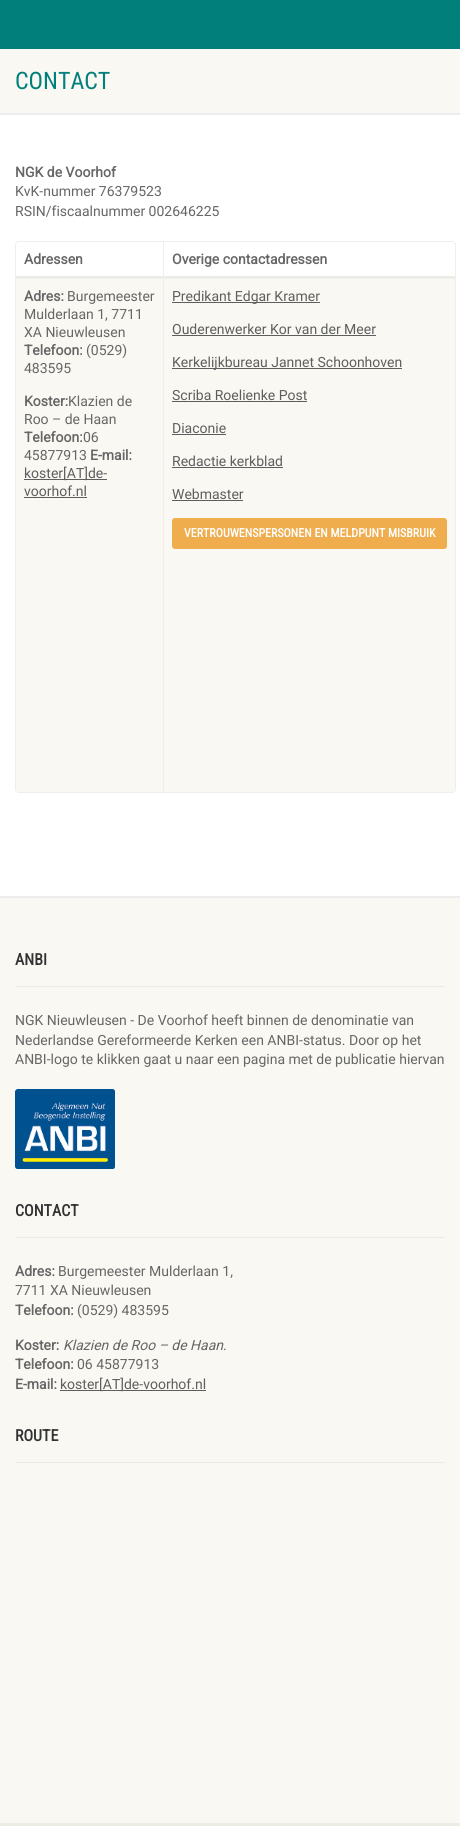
import math
import cairo


def round_path(ctx, x, y, w, h, r):
	ctx.new_sub_path()
	for i, (u, v) in enumerate([(x + w - r, y + h - r), (x + r, y + h - r), (x + r, y + r), (x + w - r, y + r)]):
		ctx.arc(u, v, r, i * math.pi / 2, (i + 1) * math.pi / 2)
	ctx.close_path()

def paste(ctx, path, x, y, w, h):
	ctx.save()
	ctx.set_source_surface(cairo.ImageSurface.create_from_png(path), x, y)
	ctx.rectangle(x, y, w, h)
	ctx.fill()
	ctx.restore()

def draw(ctx):
	ctx.set_source_rgb(1, 1, 1)
	ctx.paint()
	ctx.set_source_rgb(0, 0.498, 0.482)
	ctx.rectangle(0, 0, 460, 49)
	ctx.fill()
	ctx.set_source_rgb(0.929, 0.929, 0.929)
	ctx.rectangle(0, 113, 460, 2)
	ctx.fill()
	ctx.set_source_rgb(0.973, 0.969, 0.953)
	ctx.rectangle(0, 49, 460, 64)
	ctx.fill()
	ctx.select_font_face('Roboto Condensed')
	ctx.set_font_size(24)
	ctx.set_source_rgb(0, 0.498, 0.482)
	ctx.move_to(15, 89)
	ctx.show_text('CONTACT')
	ctx.select_font_face('Roboto', cairo.FONT_SLANT_NORMAL, cairo.FONT_WEIGHT_BOLD)
	ctx.set_font_size(14)
	ctx.set_source_rgb(0.4, 0.4, 0.4)
	ctx.move_to(15, 177)
	ctx.show_text('NGK de Voorhof')
	ctx.select_font_face('Roboto')
	ctx.move_to(15, 196)
	ctx.show_text('KvK-nummer 76379523')
	ctx.move_to(15, 216)
	ctx.show_text('RSIN/fiscaalnummer 002646225')
	round_path(ctx, 15.5, 241.5, 440, 551, 3.5)
	ctx.set_source_rgb(0.933, 0.933, 0.933)
	ctx.set_line_width(1)
	ctx.stroke()
	ctx.set_source_rgb(0.925, 0.918, 0.894)
	ctx.rectangle(16, 276, 147, 2)
	ctx.fill()
	ctx.select_font_face('Roboto', cairo.FONT_SLANT_NORMAL, cairo.FONT_WEIGHT_BOLD)
	ctx.set_source_rgb(0.4, 0.4, 0.4)
	ctx.move_to(24, 264)
	ctx.show_text('Adressen')
	ctx.set_source_rgb(0.925, 0.918, 0.894)
	ctx.new_path()
	ctx.move_to(455, 278)
	ctx.line_to(455, 276)
	ctx.line_to(164, 276)
	ctx.line_to(163, 278)
	ctx.close_path()
	ctx.fill()
	ctx.set_source_rgb(0.933, 0.933, 0.933)
	ctx.new_path()
	ctx.move_to(163, 242)
	ctx.line_to(164, 242)
	ctx.line_to(164, 276)
	ctx.line_to(163, 278)
	ctx.close_path()
	ctx.fill()
	ctx.set_source_rgb(0.4, 0.4, 0.4)
	ctx.move_to(172, 264)
	ctx.show_text('Overige contactadressen')
	ctx.set_source_rgb(0.973, 0.969, 0.953)
	ctx.new_path()
	ctx.move_to(16, 278)
	ctx.line_to(163, 278)
	ctx.line_to(163, 792)
	ctx.line_to(20, 792)
	ctx.curve_to(18, 792, 16, 790, 16, 788)
	ctx.close_path()
	ctx.fill()
	ctx.set_source_rgb(0.933, 0.933, 0.933)
	ctx.rectangle(16, 278, 147, 1)
	ctx.fill()
	ctx.set_source_rgb(0.4, 0.4, 0.4)
	ctx.move_to(24, 301)
	ctx.show_text('Adres:')
	ctx.select_font_face('Roboto')
	for x, y, s in [
		(67, 301, 'Burgemeester'),
		(24, 319, 'Mulderlaan 1, 7711'),
		(24, 337, 'XA Nieuwleusen'),
	]:
		ctx.move_to(x, y)
		ctx.show_text(s)
	ctx.select_font_face('Roboto', cairo.FONT_SLANT_NORMAL, cairo.FONT_WEIGHT_BOLD)
	ctx.move_to(24, 355)
	ctx.show_text('Telefoon:')
	ctx.select_font_face('Roboto')
	ctx.move_to(86, 355)
	ctx.show_text('(0529)')
	ctx.move_to(24, 373)
	ctx.show_text('483595')
	ctx.select_font_face('Roboto', cairo.FONT_SLANT_NORMAL, cairo.FONT_WEIGHT_BOLD)
	ctx.move_to(24, 406)
	ctx.show_text('Koster:')
	ctx.select_font_face('Roboto')
	ctx.move_to(68, 406)
	ctx.show_text('Klazien de')
	ctx.move_to(24, 424)
	ctx.show_text('Roo – de Haan')
	ctx.select_font_face('Roboto', cairo.FONT_SLANT_NORMAL, cairo.FONT_WEIGHT_BOLD)
	ctx.move_to(24, 442)
	ctx.show_text('Telefoon:')
	ctx.select_font_face('Roboto')
	ctx.move_to(83, 442)
	ctx.show_text('06')
	ctx.move_to(24, 460)
	ctx.show_text('45877913')
	ctx.select_font_face('Roboto', cairo.FONT_SLANT_NORMAL, cairo.FONT_WEIGHT_BOLD)
	ctx.move_to(90, 460)
	ctx.show_text('E-mail:')
	ctx.set_source_rgb(0.369, 0.369, 0.369)
	ctx.rectangle(24, 479, 83, 1)
	ctx.fill()
	ctx.select_font_face('Roboto')
	ctx.move_to(24, 478)
	ctx.show_text('koster[AT]de-')
	ctx.move_to(24, 496)
	ctx.show_text('voorhof.nl')
	ctx.rectangle(24, 497, 63, 1)
	ctx.fill()
	ctx.set_source_rgb(0.973, 0.969, 0.953)
	ctx.new_path()
	ctx.move_to(163, 278)
	ctx.line_to(455, 278)
	ctx.line_to(455, 788)
	ctx.curve_to(455, 790, 453, 792, 451, 792)
	ctx.line_to(163, 792)
	ctx.close_path()
	ctx.fill()
	ctx.set_source_rgb(0.933, 0.933, 0.933)
	ctx.rectangle(163, 278, 292, 1)
	ctx.rectangle(163, 278, 1, 514)
	ctx.fill()
	ctx.set_source_rgb(0.369, 0.369, 0.369)
	ctx.rectangle(172, 302, 148, 1)
	ctx.fill()
	ctx.move_to(172, 301)
	ctx.show_text('Predikant Edgar Kramer')
	ctx.move_to(172, 334)
	ctx.show_text('Ouderenwerker Kor van der Meer')
	ctx.rectangle(172, 335, 204, 1)
	ctx.fill()
	ctx.rectangle(172, 368, 230, 1)
	ctx.fill()
	ctx.move_to(172, 367)
	ctx.show_text('Kerkelijkbureau Jannet Schoonhoven')
	ctx.move_to(172, 400)
	ctx.show_text('Scriba Roelienke Post')
	ctx.rectangle(172, 401, 135, 1)
	ctx.fill()
	ctx.move_to(172, 433)
	ctx.show_text('Diaconie')
	ctx.rectangle(172, 434, 54, 1)
	ctx.fill()
	ctx.move_to(172, 466)
	ctx.show_text('Redactie kerkblad')
	ctx.rectangle(172, 467, 111, 1)
	ctx.fill()
	ctx.move_to(172, 499)
	ctx.show_text('Webmaster')
	ctx.rectangle(172, 500, 71, 1)
	ctx.fill()
	ctx.set_source_rgb(0.941, 0.678, 0.306)
	round_path(ctx, 172, 518, 275, 31, 3)
	ctx.fill()
	ctx.select_font_face('Roboto Condensed', cairo.FONT_SLANT_NORMAL, cairo.FONT_WEIGHT_BOLD)
	ctx.set_font_size(12)
	ctx.set_source_rgb(1, 1, 1)
	ctx.move_to(184, 537)
	ctx.show_text('VERTROUWENSPERSONEN EN MELDPUNT MISBRUIK')
	ctx.set_source_rgb(0.929, 0.929, 0.929)
	ctx.rectangle(0, 896, 460, 2)
	ctx.fill()
	ctx.set_source_rgb(0.973, 0.969, 0.953)
	ctx.rectangle(0, 898, 460, 925)
	ctx.fill()
	ctx.set_font_size(16)
	ctx.set_source_rgb(0.2, 0.2, 0.2)
	ctx.move_to(15, 965)
	ctx.show_text('ANBI')
	ctx.set_source_rgb(0.925, 0.918, 0.894)
	ctx.rectangle(15, 986, 430, 1)
	ctx.fill()
	ctx.select_font_face('Roboto')
	ctx.set_font_size(14)
	ctx.set_source_rgb(0.4, 0.4, 0.4)
	for x, y, s in [
		(15, 1025, 'NGK Nieuwleusen - De Voorhof heeft binnen de denominatie van'),
		(15, 1045, 'Nederlandse Gereformeerde Kerken een ANBI-status. Door op het'),
		(15, 1064, 'ANBI-logo te klikken gaat u naar een pagina met de publicatie hiervan'),
	]:
		ctx.move_to(x, y)
		ctx.show_text(s)
	paste(ctx, 'media/1.png', 15, 1089, 100, 80)
	ctx.select_font_face('Roboto Condensed', cairo.FONT_SLANT_NORMAL, cairo.FONT_WEIGHT_BOLD)
	ctx.set_font_size(16)
	ctx.set_source_rgb(0.2, 0.2, 0.2)
	ctx.move_to(15, 1216)
	ctx.show_text('CONTACT')
	ctx.set_source_rgb(0.925, 0.918, 0.894)
	ctx.rectangle(15, 1237, 430, 1)
	ctx.fill()
	ctx.select_font_face('Roboto', cairo.FONT_SLANT_NORMAL, cairo.FONT_WEIGHT_BOLD)
	ctx.set_font_size(14)
	ctx.set_source_rgb(0.4, 0.4, 0.4)
	ctx.move_to(15, 1276)
	ctx.show_text('Adres:')
	ctx.select_font_face('Roboto')
	ctx.move_to(58, 1276)
	ctx.show_text('Burgemeester Mulderlaan 1,')
	ctx.move_to(15, 1295)
	ctx.show_text('7711 XA Nieuwleusen')
	ctx.select_font_face('Roboto', cairo.FONT_SLANT_NORMAL, cairo.FONT_WEIGHT_BOLD)
	ctx.move_to(15, 1315)
	ctx.show_text('Telefoon:')
	ctx.select_font_face('Roboto')
	ctx.move_to(77, 1315)
	ctx.show_text('(0529) 483595')
	ctx.select_font_face('Roboto', cairo.FONT_SLANT_NORMAL, cairo.FONT_WEIGHT_BOLD)
	ctx.move_to(15, 1350)
	ctx.show_text('Koster:')
	ctx.select_font_face('Roboto', cairo.FONT_SLANT_ITALIC)
	ctx.move_to(63, 1350)
	ctx.show_text('Klazien de Roo – de Haan')
	ctx.select_font_face('Roboto')
	ctx.move_to(223, 1350)
	ctx.show_text('.')
	ctx.select_font_face('Roboto', cairo.FONT_SLANT_NORMAL, cairo.FONT_WEIGHT_BOLD)
	ctx.move_to(15, 1369)
	ctx.show_text('Telefoon:')
	ctx.select_font_face('Roboto')
	ctx.move_to(77, 1369)
	ctx.show_text('06 45877913')
	ctx.select_font_face('Roboto', cairo.FONT_SLANT_NORMAL, cairo.FONT_WEIGHT_BOLD)
	ctx.move_to(15, 1389)
	ctx.show_text('E-mail:')
	ctx.set_source_rgb(0.369, 0.369, 0.369)
	ctx.rectangle(60, 1390, 146, 1)
	ctx.fill()
	ctx.select_font_face('Roboto')
	ctx.move_to(60, 1389)
	ctx.show_text('koster[AT]de-voorhof.nl')
	ctx.select_font_face('Roboto Condensed', cairo.FONT_SLANT_NORMAL, cairo.FONT_WEIGHT_BOLD)
	ctx.set_font_size(16)
	ctx.set_source_rgb(0.2, 0.2, 0.2)
	ctx.move_to(15, 1441)
	ctx.show_text('ROUTE')
	ctx.set_source_rgb(0.925, 0.918, 0.894)
	ctx.rectangle(15, 1462, 430, 1)
	ctx.fill()
	ctx.rectangle(0, 1823, 460, 3)
	ctx.fill()


surface = cairo.ImageSurface(cairo.FORMAT_RGB24, 460, 1826)
ctx = cairo.Context(surface)
options = cairo.FontOptions()
options.set_hint_metrics(cairo.HINT_METRICS_OFF)
options.set_hint_style(cairo.HINT_STYLE_NONE)
ctx.set_font_options(options)
ctx.set_miter_limit(4)
draw(ctx)
surface.write_to_png('image.png')
